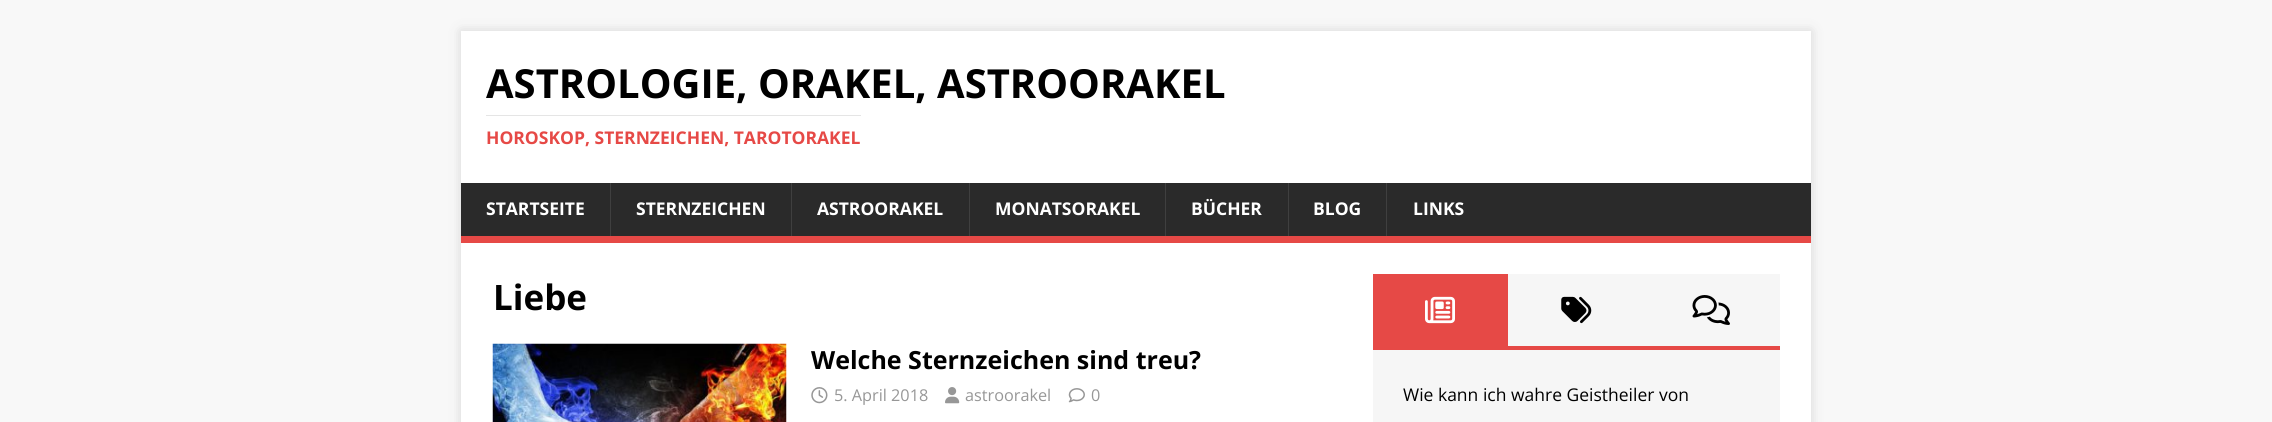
import math
import cairo


def round_path(ctx, x, y, w, h, r):
	ctx.new_sub_path()
	for i, (u, v) in enumerate([(x + w - r, y + h - r), (x + r, y + h - r), (x + r, y + r), (x + w - r, y + r)]):
		ctx.arc(u, v, r, i * math.pi / 2, (i + 1) * math.pi / 2)
	ctx.close_path()

def blur_box(ctx, x, y, w, h, r, blur, alpha):
	ctx.push_group_with_content(cairo.CONTENT_ALPHA)
	ctx.set_operator(cairo.OPERATOR_SOURCE)
	for i in range(15, -16, -2):
		e = blur * i / 6
		if min(w, h) + 2 * e > 0:
			ctx.set_source_rgba(0, 0, 0, alpha * math.erfc((i - 1) / 8.5) / 2)
			round_path(ctx, x - e, y - e, w + 2 * e, h + 2 * e, max(0, min(r + e + blur * .6, min(w, h) / 2 + e)))
			ctx.fill()
	ctx.mask(ctx.pop_group())

def paste(ctx, path, x, y, w, h):
	ctx.save()
	ctx.set_source_surface(cairo.ImageSurface.create_from_png(path), x, y)
	ctx.rectangle(x, y, w, h)
	ctx.fill()
	ctx.restore()

def draw(ctx):
	ctx.set_source_rgb(0.969, 0.969, 0.969)
	ctx.paint()
	ctx.set_source_rgb(0.196, 0.196, 0.196)
	blur_box(ctx, 461, 31, 1350, 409, 0, 6, 0.17)
	ctx.set_source_rgb(1, 1, 1)
	ctx.rectangle(461, 31, 1350, 152)
	ctx.fill()
	ctx.select_font_face('Open Sans', cairo.FONT_SLANT_NORMAL, cairo.FONT_WEIGHT_BOLD)
	ctx.set_font_size(40)
	ctx.set_source_rgb(0, 0, 0)
	ctx.move_to(486, 98)
	ctx.show_text('ASTROLOGIE, ORAKEL, ASTROORAKEL')
	ctx.set_source_rgb(0.898, 0.898, 0.898)
	ctx.rectangle(486, 115, 375, 1)
	ctx.fill()
	ctx.set_font_size(17.5)
	ctx.set_source_rgb(0.902, 0.286, 0.275)
	ctx.move_to(486, 144)
	ctx.show_text('HOROSKOP, STERNZEICHEN, TAROTORAKEL')
	ctx.set_source_rgb(0.165, 0.165, 0.165)
	ctx.rectangle(461, 183, 1350, 53)
	ctx.fill()
	ctx.set_source_rgb(0.902, 0.286, 0.275)
	ctx.rectangle(461, 236, 1350, 7)
	ctx.fill()
	ctx.set_source_rgb(1, 1, 1)
	ctx.move_to(486, 215)
	ctx.show_text('STARTSEITE')
	ctx.set_source_rgb(0.247, 0.247, 0.247)
	ctx.rectangle(610, 183, 1, 53)
	ctx.fill()
	ctx.set_source_rgb(1, 1, 1)
	ctx.move_to(636, 215)
	ctx.show_text('STERNZEICHEN')
	ctx.set_source_rgb(0.247, 0.247, 0.247)
	ctx.rectangle(791, 183, 1, 53)
	ctx.fill()
	ctx.set_source_rgb(1, 1, 1)
	ctx.move_to(817, 215)
	ctx.show_text('ASTROORAKEL')
	ctx.set_source_rgb(0.247, 0.247, 0.247)
	ctx.rectangle(969, 183, 1, 53)
	ctx.fill()
	ctx.set_source_rgb(1, 1, 1)
	ctx.move_to(995, 215)
	ctx.show_text('MONATSORAKEL')
	ctx.set_source_rgb(0.247, 0.247, 0.247)
	ctx.rectangle(1165, 183, 1, 53)
	ctx.fill()
	ctx.set_source_rgb(1, 1, 1)
	ctx.move_to(1191, 215)
	ctx.show_text('BÜCHER')
	ctx.set_source_rgb(0.247, 0.247, 0.247)
	ctx.rectangle(1288, 183, 1, 53)
	ctx.fill()
	ctx.set_source_rgb(1, 1, 1)
	ctx.move_to(1313, 215)
	ctx.show_text('BLOG')
	ctx.set_source_rgb(0.247, 0.247, 0.247)
	ctx.rectangle(1386, 183, 1, 53)
	ctx.fill()
	ctx.set_source_rgb(1, 1, 1)
	ctx.move_to(1413, 215)
	ctx.show_text('LINKS')
	ctx.rectangle(461, 243, 1350, 179)
	ctx.fill()
	ctx.set_font_size(35)
	ctx.set_source_rgb(0, 0, 0)
	ctx.move_to(493, 310)
	ctx.show_text('Liebe')
	paste(ctx, 'media/1.png', 492, 343, 295, 79)
	ctx.set_font_size(25)
	ctx.move_to(811, 369)
	ctx.show_text('Welche Sternzeichen sind treu?')
	paste(ctx, 'media/2.png', 811, 387, 17, 17)
	ctx.select_font_face('Open Sans')
	ctx.set_font_size(16.25)
	ctx.set_source_rgb(0.592, 0.592, 0.592)
	ctx.move_to(834, 401)
	ctx.show_text('5. April 2018')
	paste(ctx, 'media/3.png', 945, 387, 15, 17)
	ctx.move_to(965, 401)
	ctx.show_text('astroorakel')
	paste(ctx, 'media/4.png', 1068, 388, 17, 15)
	ctx.move_to(1091, 401)
	ctx.show_text('0')
	ctx.set_source_rgb(0.902, 0.286, 0.275)
	ctx.rectangle(1373, 346, 407, 4)
	ctx.fill()
	ctx.rectangle(1373, 274, 135, 72)
	ctx.fill()
	paste(ctx, 'media/5.png', 1425, 296, 30, 28)
	ctx.set_source_rgb(0.961, 0.961, 0.961)
	ctx.rectangle(1508, 274, 272, 72)
	ctx.fill()
	paste(ctx, 'media/6.png', 1561, 296, 31, 28)
	paste(ctx, 'media/7.png', 1692, 295, 38, 30)
	ctx.rectangle(1373, 350, 407, 72)
	ctx.fill()
	ctx.set_font_size(17.5)
	ctx.set_source_rgb(0, 0, 0)
	ctx.move_to(1403, 401)
	ctx.show_text('Wie kann ich wahre Geistheiler von')


surface = cairo.ImageSurface(cairo.FORMAT_RGB24, 2272, 422)
ctx = cairo.Context(surface)
options = cairo.FontOptions()
options.set_hint_metrics(cairo.HINT_METRICS_OFF)
options.set_hint_style(cairo.HINT_STYLE_NONE)
ctx.set_font_options(options)
ctx.set_miter_limit(4)
draw(ctx)
surface.write_to_png('image.png')
